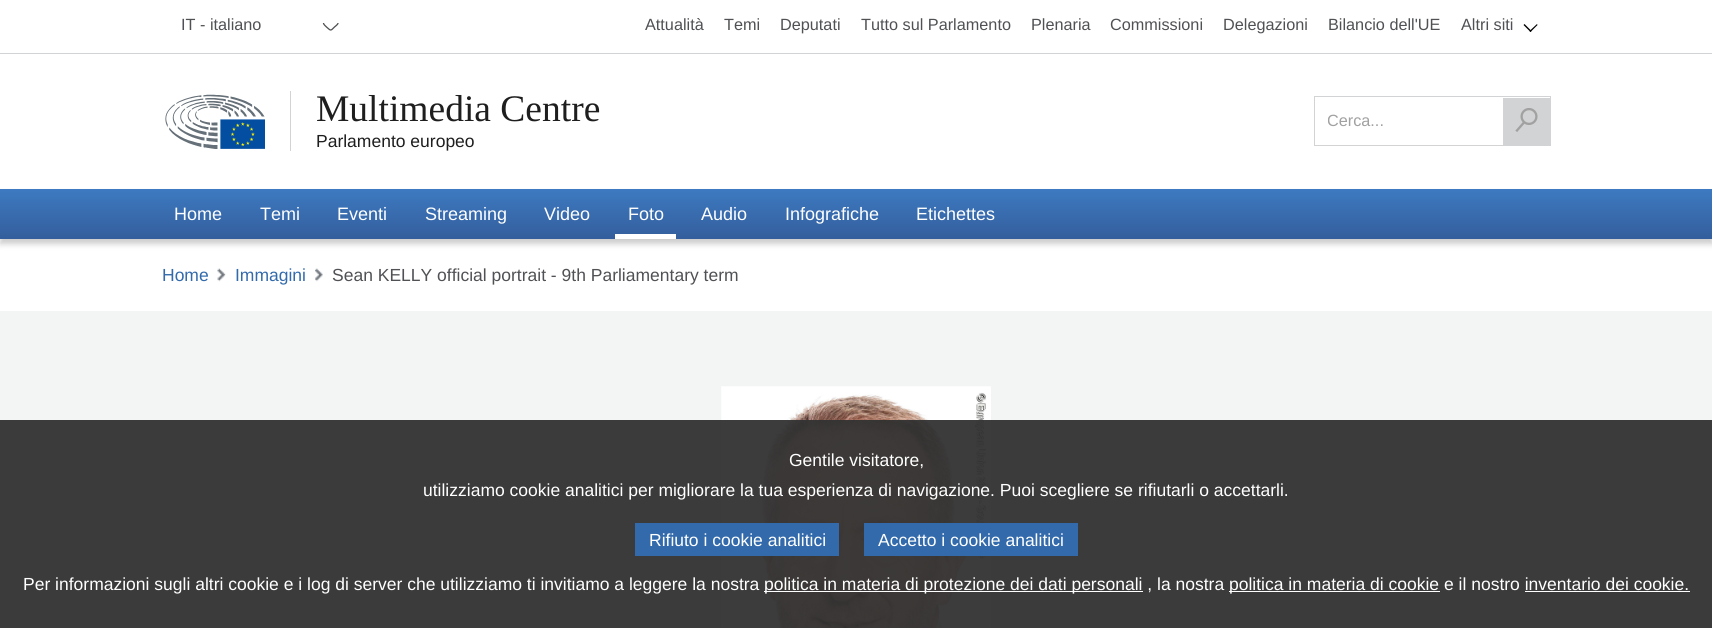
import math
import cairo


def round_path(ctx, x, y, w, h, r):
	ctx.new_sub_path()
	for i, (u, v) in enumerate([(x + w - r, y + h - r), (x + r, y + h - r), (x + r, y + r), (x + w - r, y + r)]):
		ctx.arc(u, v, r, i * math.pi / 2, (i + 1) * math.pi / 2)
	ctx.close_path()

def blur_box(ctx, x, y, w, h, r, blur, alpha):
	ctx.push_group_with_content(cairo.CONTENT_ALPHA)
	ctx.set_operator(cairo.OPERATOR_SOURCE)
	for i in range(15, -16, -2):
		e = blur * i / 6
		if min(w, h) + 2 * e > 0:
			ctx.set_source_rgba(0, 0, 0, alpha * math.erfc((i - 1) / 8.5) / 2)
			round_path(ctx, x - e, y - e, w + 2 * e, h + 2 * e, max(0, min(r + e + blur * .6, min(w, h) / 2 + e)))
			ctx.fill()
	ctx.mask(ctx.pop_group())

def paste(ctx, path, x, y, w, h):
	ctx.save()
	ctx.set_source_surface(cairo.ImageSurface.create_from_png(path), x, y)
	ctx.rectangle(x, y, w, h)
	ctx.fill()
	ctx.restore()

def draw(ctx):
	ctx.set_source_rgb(1, 1, 1)
	ctx.paint()
	ctx.set_source_rgb(0.82, 0.827, 0.831)
	ctx.rectangle(0, 53, 1712, 1)
	ctx.fill()
	ctx.select_font_face('Liberation Sans')
	ctx.set_font_size(16.25)
	ctx.set_source_rgb(0.314, 0.318, 0.329)
	ctx.move_to(181, 30)
	ctx.show_text('IT - italiano')
	ctx.new_path()
	ctx.move_to(338, 23)
	ctx.curve_to(338, 24.5, 335.5, 26, 334.5, 27)
	ctx.curve_to(330.5, 31, 331, 31, 326.5, 27)
	ctx.curve_to(325.5, 26, 323.5, 24.5, 323.5, 23)
	ctx.set_line_width(1.3)
	ctx.stroke()
	for x, y, s in [
		(645, 30, 'Attualità'),
		(724, 30, 'Temi'),
		(780, 30, 'Deputati'),
		(861, 30, 'Tutto sul Parlamento'),
		(1031, 30, 'Plenaria'),
		(1110, 30, 'Commissioni'),
		(1223, 30, 'Delegazioni'),
		(1328, 30, 'Bilancio dell\'UE'),
		(1461, 30, 'Altri siti'),
	]:
		ctx.move_to(x, y)
		ctx.show_text(s)
	ctx.set_source_rgb(0, 0, 0)
	ctx.new_path()
	ctx.move_to(1537, 24)
	ctx.line_to(1537.5, 25)
	ctx.line_to(1530.5, 32)
	ctx.line_to(1529.5, 31)
	ctx.close_path()
	ctx.fill()
	ctx.new_path()
	ctx.move_to(1524.5, 24)
	ctx.line_to(1531.5, 31)
	ctx.line_to(1530.5, 32)
	ctx.line_to(1523.5, 25)
	ctx.close_path()
	ctx.fill()
	paste(ctx, 'media/1.png', 165, 94, 100, 55)
	ctx.set_source_rgb(0.82, 0.827, 0.831)
	ctx.rectangle(290, 91, 1, 60)
	ctx.fill()
	ctx.select_font_face('Liberation Serif')
	ctx.set_font_size(37.5)
	ctx.set_source_rgb(0.118, 0.118, 0.122)
	ctx.move_to(316, 121)
	ctx.show_text('Multimedia Centre')
	ctx.select_font_face('Liberation Sans')
	ctx.set_font_size(17.5)
	ctx.move_to(316, 147)
	ctx.show_text('Parlamento europeo')
	ctx.rectangle(1314.5, 96.5, 236, 49)
	ctx.set_source_rgb(0.82, 0.827, 0.831)
	ctx.set_line_width(1)
	ctx.stroke()
	ctx.save()
	ctx.rectangle(1328, 111, 193, 19)
	ctx.clip()
	ctx.set_font_size(16.25)
	ctx.set_source_rgb(0.635, 0.631, 0.635)
	ctx.move_to(1327, 126)
	ctx.show_text('Cerca...')
	ctx.restore()
	ctx.rectangle(1503, 98, 47, 47)
	ctx.fill()
	paste(ctx, 'media/2.png', 1515, 108, 23, 24)
	ctx.set_source_rgb(0, 0, 0)
	blur_box(ctx, 0, 194, 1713, 50, 0, 3, 0.2)
	gradient = cairo.LinearGradient(856, 189, 856, 239)
	gradient.add_color_stop_rgba(0, 0.239, 0.478, 0.757, 1)
	gradient.add_color_stop_rgba(1, 0.204, 0.369, 0.612, 1)
	ctx.set_source(gradient)
	ctx.rectangle(0, 189, 1712, 50)
	ctx.fill()
	ctx.set_font_size(18)
	ctx.set_source_rgb(1, 1, 1)
	for x, y, s in [
		(174, 220, 'Home'),
		(260, 220, 'Temi'),
		(337, 220, 'Eventi'),
		(425, 220, 'Streaming'),
		(544, 220, 'Video'),
		(628, 220, 'Foto'),
	]:
		ctx.move_to(x, y)
		ctx.show_text(s)
	ctx.rectangle(615, 234, 61, 5)
	ctx.fill()
	for x, y, s in [
		(701, 220, 'Audio'),
		(785, 220, 'Infografiche'),
		(916, 220, 'Etichettes'),
	]:
		ctx.move_to(x, y)
		ctx.show_text(s)
	ctx.set_font_size(17.5)
	ctx.set_source_rgb(0.196, 0.416, 0.671)
	ctx.move_to(162, 281)
	ctx.show_text('Home')
	paste(ctx, 'media/3.png', 217, 268, 9, 14)
	ctx.move_to(235, 281)
	ctx.show_text('Immagini')
	paste(ctx, 'media/4.png', 315, 268, 8, 14)
	ctx.set_source_rgb(0.314, 0.318, 0.329)
	ctx.move_to(332, 281)
	ctx.show_text('Sean KELLY official portrait - 9th Parliamentary term')
	ctx.set_source_rgb(0.953, 0.957, 0.957)
	ctx.rectangle(0, 311, 1712, 317)
	ctx.fill()
	paste(ctx, 'media/5.png', 721, 386, 270, 242)
	ctx.set_source_rgba(0.2, 0.2, 0.2, 0.95)
	ctx.rectangle(0, 420, 1712, 208)
	ctx.fill()
	ctx.set_source_rgb(1, 1, 1)
	ctx.move_to(789, 466)
	ctx.show_text('Gentile visitatore,')
	ctx.move_to(423, 496)
	ctx.show_text('utilizziamo cookie analitici per migliorare la tua esperienza di navigazione. Puoi scegliere se rifiutarli o accettarli.')
	ctx.set_source_rgb(0.196, 0.416, 0.671)
	ctx.rectangle(635, 523, 204, 33)
	ctx.fill()
	ctx.set_source_rgb(1, 1, 1)
	ctx.move_to(649, 546)
	ctx.show_text('Rifiuto i cookie analitici')
	ctx.set_source_rgb(0.196, 0.416, 0.671)
	ctx.rectangle(864, 523, 214, 33)
	ctx.fill()
	ctx.set_source_rgb(1, 1, 1)
	ctx.move_to(878, 546)
	ctx.show_text('Accetto i cookie analitici')
	ctx.move_to(23, 590)
	ctx.show_text('Per informazioni sugli altri cookie e i log di server che utilizziamo ti invitiamo a leggere la nostra')
	ctx.rectangle(764, 591, 379, 1)
	ctx.fill()
	ctx.move_to(764, 590)
	ctx.show_text('politica in materia di protezione dei dati personali , la nostra')
	ctx.rectangle(1229, 591, 211, 1)
	ctx.fill()
	ctx.move_to(1229, 590)
	ctx.show_text('politica in materia di cookie e il nostro inventario dei cookie.')
	ctx.rectangle(1525, 591, 165, 1)
	ctx.fill()


surface = cairo.ImageSurface(cairo.FORMAT_RGB24, 1712, 628)
ctx = cairo.Context(surface)
options = cairo.FontOptions()
options.set_hint_metrics(cairo.HINT_METRICS_OFF)
options.set_hint_style(cairo.HINT_STYLE_NONE)
ctx.set_font_options(options)
ctx.set_miter_limit(4)
draw(ctx)
surface.write_to_png('image.png')
